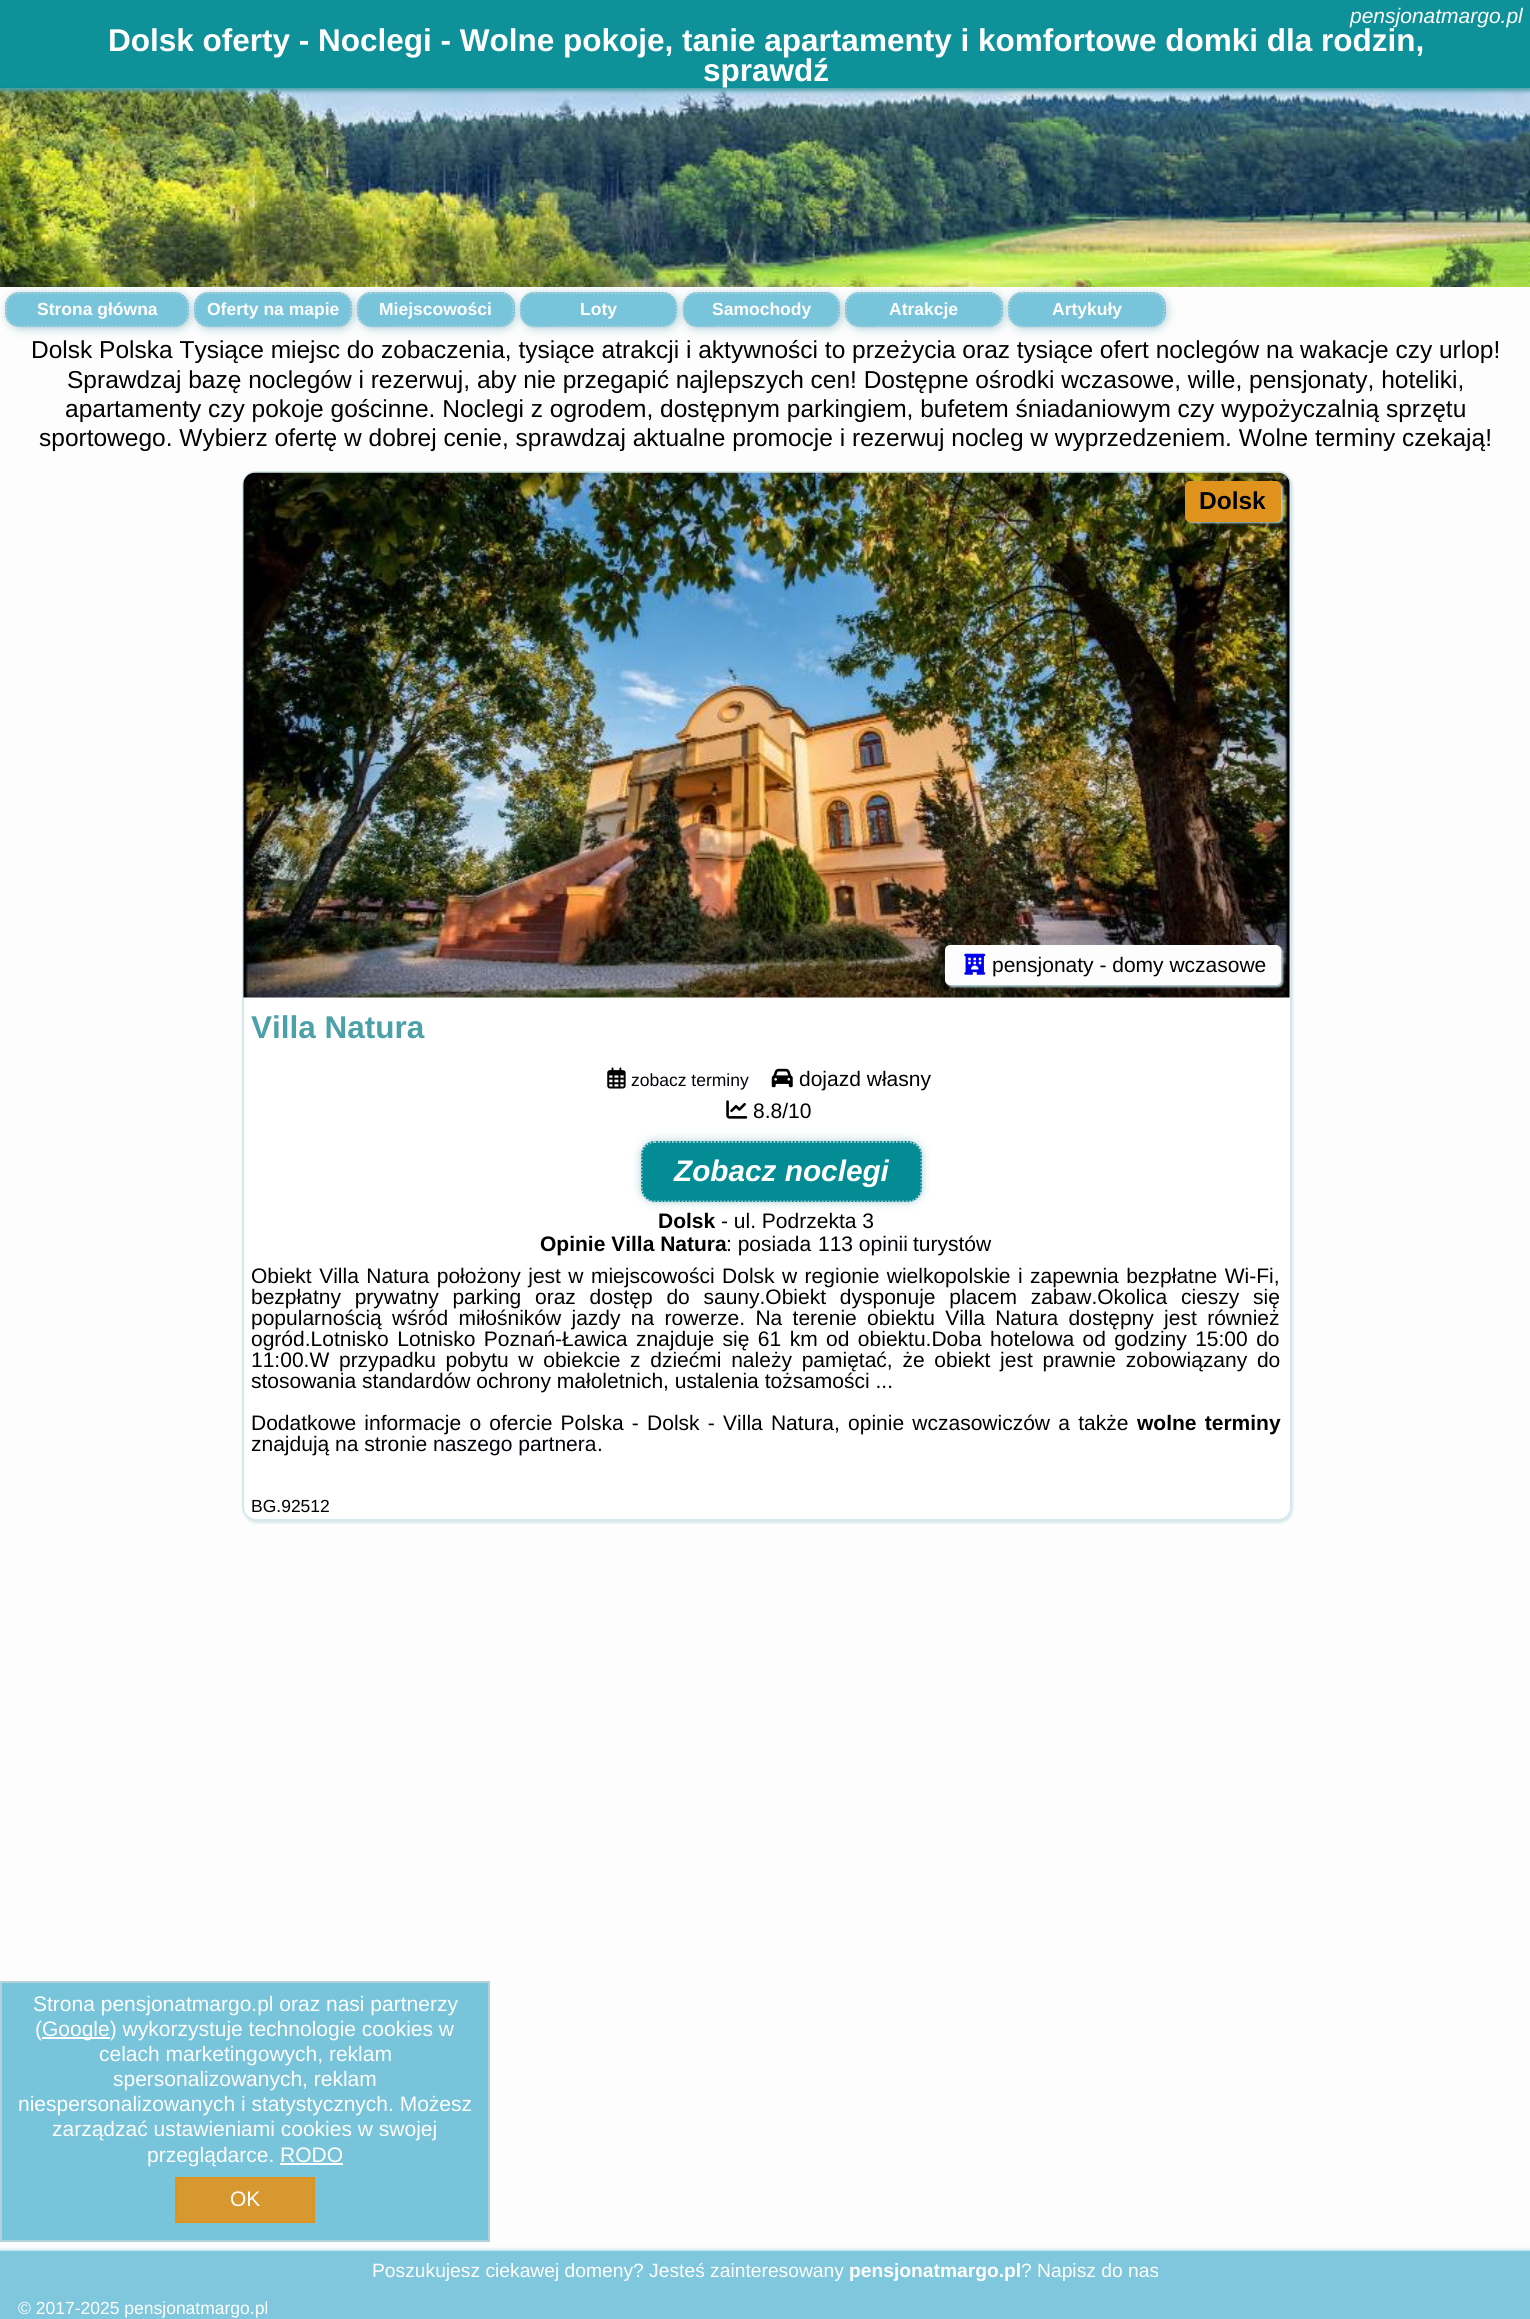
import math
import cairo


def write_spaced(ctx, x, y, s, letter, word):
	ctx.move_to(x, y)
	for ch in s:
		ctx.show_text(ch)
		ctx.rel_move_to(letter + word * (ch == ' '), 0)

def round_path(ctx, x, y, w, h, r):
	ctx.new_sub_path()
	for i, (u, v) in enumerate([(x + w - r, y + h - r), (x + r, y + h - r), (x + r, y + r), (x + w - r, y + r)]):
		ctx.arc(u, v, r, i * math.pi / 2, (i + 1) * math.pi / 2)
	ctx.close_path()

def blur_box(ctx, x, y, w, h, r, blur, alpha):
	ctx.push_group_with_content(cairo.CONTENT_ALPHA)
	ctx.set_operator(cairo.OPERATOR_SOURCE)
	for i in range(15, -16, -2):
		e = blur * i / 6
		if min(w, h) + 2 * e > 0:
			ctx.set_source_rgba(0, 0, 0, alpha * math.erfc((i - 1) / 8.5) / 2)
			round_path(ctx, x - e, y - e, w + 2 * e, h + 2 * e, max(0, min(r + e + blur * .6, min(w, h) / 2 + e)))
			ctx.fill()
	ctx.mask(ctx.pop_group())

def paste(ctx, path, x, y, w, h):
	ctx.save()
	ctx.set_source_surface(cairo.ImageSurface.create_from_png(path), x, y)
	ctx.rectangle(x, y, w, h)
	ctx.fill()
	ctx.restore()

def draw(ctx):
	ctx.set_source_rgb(0.992, 0.992, 0.992)
	ctx.paint()
	paste(ctx, 'media/1.png', 0, 87, 1530, 200)
	ctx.save()
	ctx.set_fill_rule(cairo.FILL_RULE_EVEN_ODD)
	ctx.new_path()
	ctx.move_to(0, 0)
	ctx.line_to(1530, 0)
	ctx.line_to(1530, 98)
	ctx.line_to(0, 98)
	ctx.close_path()
	ctx.move_to(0, 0)
	ctx.line_to(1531, 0)
	ctx.line_to(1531, 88)
	ctx.line_to(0, 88)
	ctx.close_path()
	ctx.clip()
	ctx.set_source_rgb(0.298, 0.631, 0.663)
	blur_box(ctx, 0, 4, 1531, 87, 0, 2, 1)
	ctx.restore()
	ctx.set_source_rgba(0.016, 0.549, 0.58, 0.95)
	ctx.rectangle(0, 0, 1530, 88)
	ctx.fill()
	ctx.select_font_face('Liberation Sans', cairo.FONT_SLANT_ITALIC)
	ctx.set_font_size(21)
	ctx.set_source_rgb(1, 1, 1)
	ctx.move_to(1350, 23)
	ctx.show_text('pensjonatmargo.pl')
	ctx.select_font_face('Liberation Sans', cairo.FONT_SLANT_NORMAL, cairo.FONT_WEIGHT_BOLD)
	ctx.set_font_size(31.5)
	ctx.move_to(108, 51)
	ctx.show_text('Dolsk oferty - Noclegi - Wolne pokoje, tanie apartamenty i komfortowe domki dla rodzin,')
	ctx.move_to(703, 81)
	ctx.show_text('sprawdź')
	ctx.save()
	ctx.rectangle(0, 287, 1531, 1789)
	ctx.clip()
	ctx.set_source_rgb(0.698, 0.82, 0.851)
	blur_box(ctx, 7, 294, 184, 35, 14, 4.5, 1)
	ctx.restore()
	ctx.set_source_rgb(0.471, 0.769, 0.859)
	round_path(ctx, 5, 292, 184, 35, 14)
	ctx.fill()
	ctx.new_path()
	ctx.move_to(19, 293)
	ctx.line_to(175, 293)
	ctx.curve_to(182, 293, 188, 299, 188, 306)
	ctx.line_to(188, 313)
	ctx.curve_to(188, 320.5, 182, 326.5, 175, 326.5)
	ctx.line_to(19, 326.5)
	ctx.curve_to(12, 326.5, 6, 320.5, 6, 313)
	ctx.line_to(6, 306)
	ctx.curve_to(6, 299, 12, 293, 19, 293)
	ctx.close_path()
	ctx.set_source_rgb(0.698, 0.82, 0.851)
	ctx.set_line_width(1.8)
	ctx.set_dash([1.75, 1.75])
	ctx.stroke()
	ctx.set_font_size(17.5)
	ctx.set_source_rgb(1, 1, 1)
	ctx.move_to(37, 315)
	ctx.show_text('Strona główna')
	ctx.save()
	ctx.rectangle(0, 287, 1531, 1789)
	ctx.clip()
	ctx.set_source_rgb(0.698, 0.82, 0.851)
	blur_box(ctx, 196, 294, 158, 35, 14, 4.5, 1)
	ctx.restore()
	ctx.set_source_rgb(0.471, 0.769, 0.859)
	round_path(ctx, 194, 292, 158, 35, 14)
	ctx.fill()
	ctx.new_path()
	ctx.move_to(208, 293)
	ctx.line_to(340.5, 293.5)
	ctx.curve_to(349.5, 295, 351, 302.5, 351, 310.5)
	ctx.curve_to(351, 319, 347.5, 326.5, 338, 326.5)
	ctx.line_to(230, 326.5)
	ctx.curve_to(228.5, 326.5, 210, 328.5, 203, 325.5)
	ctx.curve_to(190.5, 320, 192, 293, 208, 293)
	ctx.close_path()
	ctx.set_source_rgb(0.698, 0.82, 0.851)
	ctx.stroke()
	ctx.set_source_rgb(1, 1, 1)
	ctx.move_to(207, 315)
	ctx.show_text('Oferty na mapie')
	ctx.save()
	ctx.rectangle(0, 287, 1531, 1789)
	ctx.clip()
	ctx.set_source_rgb(0.698, 0.82, 0.851)
	blur_box(ctx, 359, 294, 157, 35, 14, 4.5, 1)
	ctx.restore()
	ctx.set_source_rgb(0.471, 0.769, 0.859)
	round_path(ctx, 357, 292, 158, 35, 14)
	ctx.fill()
	ctx.new_path()
	ctx.move_to(371, 293)
	ctx.line_to(503, 293.5)
	ctx.curve_to(512, 295, 513.5, 302.5, 513.5, 310.5)
	ctx.curve_to(513.5, 319, 510, 326.5, 500.5, 326.5)
	ctx.line_to(392.5, 326.5)
	ctx.curve_to(391, 326.5, 373, 328.5, 366, 325.5)
	ctx.curve_to(353.5, 320, 354.5, 293, 371, 293)
	ctx.close_path()
	ctx.set_source_rgb(0.698, 0.82, 0.851)
	ctx.stroke()
	ctx.set_source_rgb(1, 1, 1)
	ctx.move_to(379, 315)
	ctx.show_text('Miejscowości')
	ctx.save()
	ctx.rectangle(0, 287, 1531, 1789)
	ctx.clip()
	ctx.set_source_rgb(0.698, 0.82, 0.851)
	blur_box(ctx, 522, 294, 157, 35, 14, 4.5, 1)
	ctx.restore()
	ctx.set_source_rgb(0.471, 0.769, 0.859)
	round_path(ctx, 520, 292, 157, 35, 14)
	ctx.fill()
	ctx.new_path()
	ctx.move_to(534, 293)
	ctx.line_to(666, 293.5)
	ctx.curve_to(675, 295, 676.5, 302.5, 676.5, 310.5)
	ctx.curve_to(676.5, 319, 673, 326.5, 663, 326.5)
	ctx.line_to(555.5, 326.5)
	ctx.curve_to(554, 326.5, 535.5, 328.5, 528.5, 325.5)
	ctx.curve_to(516, 320, 517.5, 293, 534, 293)
	ctx.close_path()
	ctx.set_source_rgb(0.698, 0.82, 0.851)
	ctx.stroke()
	ctx.set_source_rgb(1, 1, 1)
	ctx.move_to(580, 315)
	ctx.show_text('Loty')
	ctx.save()
	ctx.rectangle(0, 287, 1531, 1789)
	ctx.clip()
	ctx.set_source_rgb(0.698, 0.82, 0.851)
	blur_box(ctx, 684, 294, 158, 35, 14, 4.5, 1)
	ctx.restore()
	ctx.set_source_rgb(0.471, 0.769, 0.859)
	round_path(ctx, 683, 292, 157, 35, 14)
	ctx.fill()
	ctx.new_path()
	ctx.move_to(696.5, 293)
	ctx.line_to(828.5, 293.5)
	ctx.curve_to(837.5, 295, 839, 302.5, 839, 310.5)
	ctx.curve_to(839, 319, 835.5, 326.5, 826, 326.5)
	ctx.line_to(718, 326.5)
	ctx.curve_to(716.5, 326.5, 698.5, 328.5, 691.5, 325.5)
	ctx.curve_to(679, 320, 680, 293, 696.5, 293)
	ctx.close_path()
	ctx.set_source_rgb(0.698, 0.82, 0.851)
	ctx.stroke()
	ctx.set_source_rgb(1, 1, 1)
	ctx.move_to(712, 315)
	ctx.show_text('Samochody')
	ctx.save()
	ctx.rectangle(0, 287, 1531, 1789)
	ctx.clip()
	ctx.set_source_rgb(0.698, 0.82, 0.851)
	blur_box(ctx, 847, 294, 158, 35, 14, 4.5, 1)
	ctx.restore()
	ctx.set_source_rgb(0.471, 0.769, 0.859)
	round_path(ctx, 845, 292, 158, 35, 14)
	ctx.fill()
	ctx.new_path()
	ctx.move_to(859, 293)
	ctx.line_to(991.5, 293.5)
	ctx.curve_to(1000.5, 295, 1002, 302.5, 1002, 310.5)
	ctx.curve_to(1002, 319, 998.5, 326.5, 989, 326.5)
	ctx.line_to(881, 326.5)
	ctx.curve_to(879.5, 326.5, 861, 328.5, 854, 325.5)
	ctx.curve_to(841.5, 320, 843, 293, 859, 293)
	ctx.close_path()
	ctx.set_source_rgb(0.698, 0.82, 0.851)
	ctx.stroke()
	ctx.set_source_rgb(1, 1, 1)
	ctx.move_to(889, 315)
	ctx.show_text('Atrakcje')
	ctx.save()
	ctx.rectangle(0, 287, 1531, 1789)
	ctx.clip()
	ctx.set_source_rgb(0.698, 0.82, 0.851)
	blur_box(ctx, 1010, 294, 157, 35, 14, 4.5, 1)
	ctx.restore()
	ctx.set_source_rgb(0.471, 0.769, 0.859)
	round_path(ctx, 1008, 292, 158, 35, 14)
	ctx.fill()
	ctx.new_path()
	ctx.move_to(1022, 293)
	ctx.line_to(1154, 293.5)
	ctx.curve_to(1163, 295, 1164.5, 302.5, 1164.5, 310.5)
	ctx.curve_to(1164.5, 319, 1161, 326.5, 1151.5, 326.5)
	ctx.line_to(1043.5, 326.5)
	ctx.curve_to(1042, 326.5, 1024, 328.5, 1017, 325.5)
	ctx.curve_to(1004.5, 320, 1005.5, 293, 1022, 293)
	ctx.close_path()
	ctx.set_source_rgb(0.698, 0.82, 0.851)
	ctx.stroke()
	ctx.set_source_rgb(1, 1, 1)
	ctx.move_to(1052, 315)
	ctx.show_text('Artykuły')
	ctx.select_font_face('Liberation Sans')
	ctx.set_font_size(24.5)
	ctx.set_source_rgb(0, 0, 0)
	for x, y, s in [
		(31, 358, 'Dolsk Polska Tysiące miejsc do zobaczenia, tysiące atrakcji i aktywności to przeżycia oraz tysiące ofert noclegów na wakacje czy urlop!'),
		(67, 388, 'Sprawdzaj bazę noclegów i rezerwuj, aby nie przegapić najlepszych cen! Dostępne ośrodki wczasowe, wille, pensjonaty, hoteliki,'),
		(65, 417, 'apartamenty czy pokoje gościnne. Noclegi z ogrodem, dostępnym parkingiem, bufetem śniadaniowym czy wypożyczalnią sprzętu'),
		(39, 446, 'sportowego. Wybierz ofertę w dobrej cenie, sprawdzaj aktualne promocje i rezerwuj nocleg w wyprzedzeniem. Wolne terminy czekają!'),
	]:
		ctx.move_to(x, y)
		ctx.show_text(s)
	ctx.set_source_rgb(0.698, 0.82, 0.851)
	blur_box(ctx, 243, 473, 1050, 1050, 14, 1, 0.5)
	ctx.set_source_rgb(1, 1, 1)
	round_path(ctx, 242, 471, 1050, 1050, 14)
	ctx.fill()
	round_path(ctx, 243, 472, 1048, 1048, 13)
	ctx.set_source_rgba(0.698, 0.82, 0.851, 0.5)
	ctx.set_line_width(2)
	ctx.set_dash([])
	ctx.stroke()
	paste(ctx, 'media/2.png', 243, 472, 1047, 526)
	ctx.set_source_rgb(0.698, 0.82, 0.851)
	blur_box(ctx, 1187, 483, 96, 40, 5, 1, 1)
	ctx.set_source_rgb(0.878, 0.576, 0.11)
	round_path(ctx, 1185, 481, 96, 41, 5)
	ctx.fill()
	ctx.select_font_face('Liberation Sans', cairo.FONT_SLANT_NORMAL, cairo.FONT_WEIGHT_BOLD)
	ctx.set_source_rgb(0.004, 0.004, 0.043)
	ctx.move_to(1199, 509)
	ctx.show_text('Dolsk')
	ctx.set_source_rgb(0.698, 0.82, 0.851)
	blur_box(ctx, 947, 947, 336, 40, 5, 1, 1)
	ctx.set_source_rgb(0.992, 0.992, 0.992)
	round_path(ctx, 945, 945, 336, 40, 5)
	ctx.fill()
	paste(ctx, 'media/3.png', 964, 953, 22, 22)
	ctx.select_font_face('Liberation Sans')
	ctx.set_font_size(21)
	ctx.set_source_rgb(0, 0, 0)
	ctx.move_to(992, 972)
	ctx.show_text('pensjonaty - domy wczasowe')
	ctx.select_font_face('Liberation Sans', cairo.FONT_SLANT_NORMAL, cairo.FONT_WEIGHT_BOLD)
	ctx.set_font_size(31.5)
	ctx.set_source_rgb(0.298, 0.631, 0.663)
	ctx.move_to(251, 1038)
	ctx.show_text('Villa Natura')
	paste(ctx, 'media/4.png', 607, 1067, 19, 22)
	ctx.select_font_face('Liberation Sans')
	ctx.set_font_size(17.5)
	ctx.set_source_rgb(0.004, 0.004, 0.043)
	ctx.move_to(631, 1086)
	ctx.show_text('zobacz terminy')
	paste(ctx, 'media/5.png', 771, 1068, 22, 20)
	ctx.set_font_size(21)
	ctx.set_source_rgb(0, 0, 0)
	ctx.move_to(799, 1086)
	ctx.show_text('dojazd własny')
	paste(ctx, 'media/6.png', 726, 1100, 22, 19)
	ctx.move_to(753, 1118)
	ctx.show_text('8.8/10')
	ctx.set_source_rgb(0.698, 0.82, 0.851)
	blur_box(ctx, 641, 1141, 281, 61, 14, 4.5, 1)
	ctx.set_source_rgb(0.016, 0.549, 0.58)
	round_path(ctx, 641, 1141, 281, 61, 14)
	ctx.fill()
	ctx.new_path()
	ctx.move_to(654.5, 1142)
	ctx.line_to(908, 1142)
	ctx.curve_to(915.5, 1142, 921.5, 1148, 921.5, 1155)
	ctx.line_to(921.5, 1188)
	ctx.curve_to(921.5, 1195.5, 915.5, 1201.5, 908, 1201.5)
	ctx.line_to(654.5, 1201.5)
	ctx.curve_to(647.5, 1201.5, 641.5, 1195.5, 641.5, 1188)
	ctx.line_to(641.5, 1155)
	ctx.curve_to(641.5, 1148, 647.5, 1142, 654.5, 1142)
	ctx.close_path()
	ctx.set_source_rgb(0.698, 0.82, 0.851)
	ctx.set_line_width(1.8)
	ctx.set_dash([1.75, 1.75])
	ctx.stroke()
	ctx.select_font_face('Liberation Sans', cairo.FONT_SLANT_ITALIC, cairo.FONT_WEIGHT_BOLD)
	ctx.set_font_size(29.75)
	ctx.set_source_rgb(1, 1, 1)
	ctx.move_to(674, 1181)
	ctx.show_text('Zobacz noclegi')
	ctx.select_font_face('Liberation Sans', cairo.FONT_SLANT_NORMAL, cairo.FONT_WEIGHT_BOLD)
	ctx.set_font_size(21)
	ctx.set_source_rgb(0, 0, 0)
	ctx.move_to(658, 1228)
	ctx.show_text('Dolsk')
	ctx.select_font_face('Liberation Sans')
	ctx.move_to(721, 1228)
	ctx.show_text('- ul. Podrzekta 3')
	ctx.select_font_face('Liberation Sans', cairo.FONT_SLANT_NORMAL, cairo.FONT_WEIGHT_BOLD)
	ctx.move_to(540, 1251)
	ctx.show_text('Opinie Villa Natura')
	ctx.select_font_face('Liberation Sans')
	ctx.move_to(726, 1251)
	ctx.show_text(': posiada')
	ctx.set_source_rgb(0.004, 0.004, 0.043)
	ctx.move_to(818, 1251)
	ctx.show_text('113 opinii')
	ctx.set_source_rgb(0, 0, 0)
	ctx.move_to(913, 1251)
	ctx.show_text('turystów')
	write_spaced(ctx, 251, 1283, 'Obiekt Villa Natura położony jest w miejscowości Dolsk w regionie wielkopolskie i zapewnia bezpłatne Wi-Fi,', 0, 1.6)
	write_spaced(ctx, 251, 1304, 'bezpłatny prywatny parking oraz dostęp do sauny.Obiekt dysponuje placem zabaw.Okolica cieszy się', 0, 7.9)
	write_spaced(ctx, 251, 1325, 'popularnością wśród miłośników jazdy na rowerze. Na terenie obiektu Villa Natura dostępny jest również', 0, 4.5)
	write_spaced(ctx, 251, 1346, 'ogród.Lotnisko Lotnisko Poznań-Ławica znajduje się 61 km od obiektu.Doba hotelowa od godziny 15:00 do', 0, 2.6)
	write_spaced(ctx, 251, 1367, '11:00.W przypadku pobytu w obiekcie z dziećmi należy pamiętać, że obiekt jest prawnie zobowiązany do', 0, 3.9)
	ctx.move_to(251, 1388)
	ctx.show_text('stosowania standardów ochrony małoletnich, ustalenia tożsamości ...')
	write_spaced(ctx, 251, 1430, 'Dodatkowe informacje o ofercie Polska - Dolsk - Villa Natura, opinie wczasowiczów a także', 0, 2.4)
	ctx.select_font_face('Liberation Sans', cairo.FONT_SLANT_NORMAL, cairo.FONT_WEIGHT_BOLD)
	write_spaced(ctx, 1137, 1430, 'wolne terminy', 0, 2.4)
	ctx.select_font_face('Liberation Sans')
	ctx.move_to(251, 1451)
	ctx.show_text('znajdują na stronie')
	ctx.set_source_rgb(0.004, 0.004, 0.043)
	ctx.move_to(433, 1451)
	ctx.show_text('naszego partnera')
	ctx.set_source_rgb(0, 0, 0)
	ctx.move_to(597, 1451)
	ctx.show_text('.')
	ctx.set_font_size(17.5)
	ctx.move_to(251, 1512)
	ctx.show_text('BG.92512')
	ctx.set_source_rgb(0.471, 0.769, 0.859)
	ctx.rectangle(1, 1982, 488, 259)
	ctx.fill_preserve()
	ctx.set_source_rgb(0.698, 0.82, 0.851)
	ctx.set_line_width(2)
	ctx.set_dash([])
	ctx.stroke()
	ctx.set_font_size(21)
	ctx.set_source_rgb(1, 1, 1)
	ctx.move_to(33, 2011)
	ctx.show_text('Strona pensjonatmargo.pl oraz nasi partnerzy')
	ctx.move_to(35, 2036)
	ctx.show_text('(')
	ctx.rectangle(42, 2037, 68, 2)
	ctx.fill()
	for x, y, s in [
		(42, 2036, 'Google) wykorzystuje technologie cookies w'),
		(99, 2061, 'celach marketingowych, reklam'),
		(113, 2086, 'spersonalizowanych, reklam'),
		(18, 2111, 'niespersonalizowanych i statystycznych. Możesz'),
		(52, 2136, 'zarządzać ustawieniami cookies w swojej'),
		(147, 2162, 'przeglądarce. RODO'),
	]:
		ctx.move_to(x, y)
		ctx.show_text(s)
	ctx.rectangle(280, 2163, 63, 2)
	ctx.fill()
	ctx.set_source_rgb(0.839, 0.596, 0.184)
	ctx.rectangle(176, 2178, 138, 44)
	ctx.fill_preserve()
	ctx.set_source_rgb(0.878, 0.576, 0.11)
	ctx.stroke()
	ctx.set_source_rgb(1, 1, 1)
	ctx.move_to(230, 2206)
	ctx.show_text('OK')
	ctx.set_source_rgb(0.471, 0.769, 0.859)
	blur_box(ctx, 0, 2251, 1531, 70, 0, 2, 1)
	ctx.set_source_rgb(0.498, 0.78, 0.867)
	ctx.rectangle(0, 2251, 1530, 68)
	ctx.fill()
	ctx.set_font_size(19.25)
	ctx.set_source_rgb(1, 1, 1)
	ctx.move_to(372, 2277)
	ctx.show_text('Poszukujesz ciekawej domeny? Jesteś zainteresowany')
	ctx.select_font_face('Liberation Sans', cairo.FONT_SLANT_NORMAL, cairo.FONT_WEIGHT_BOLD)
	ctx.move_to(849, 2277)
	ctx.show_text('pensjonatmargo.pl')
	ctx.select_font_face('Liberation Sans')
	ctx.move_to(1021, 2277)
	ctx.show_text('? Napisz do nas')
	ctx.set_font_size(17.5)
	ctx.move_to(18, 2314)
	ctx.show_text('© 2017-2025 pensjonatmargo.pl')


surface = cairo.ImageSurface(cairo.FORMAT_RGB24, 1530, 2319)
ctx = cairo.Context(surface)
options = cairo.FontOptions()
options.set_hint_metrics(cairo.HINT_METRICS_OFF)
options.set_hint_style(cairo.HINT_STYLE_NONE)
ctx.set_font_options(options)
ctx.set_miter_limit(4)
draw(ctx)
surface.write_to_png('image.png')
